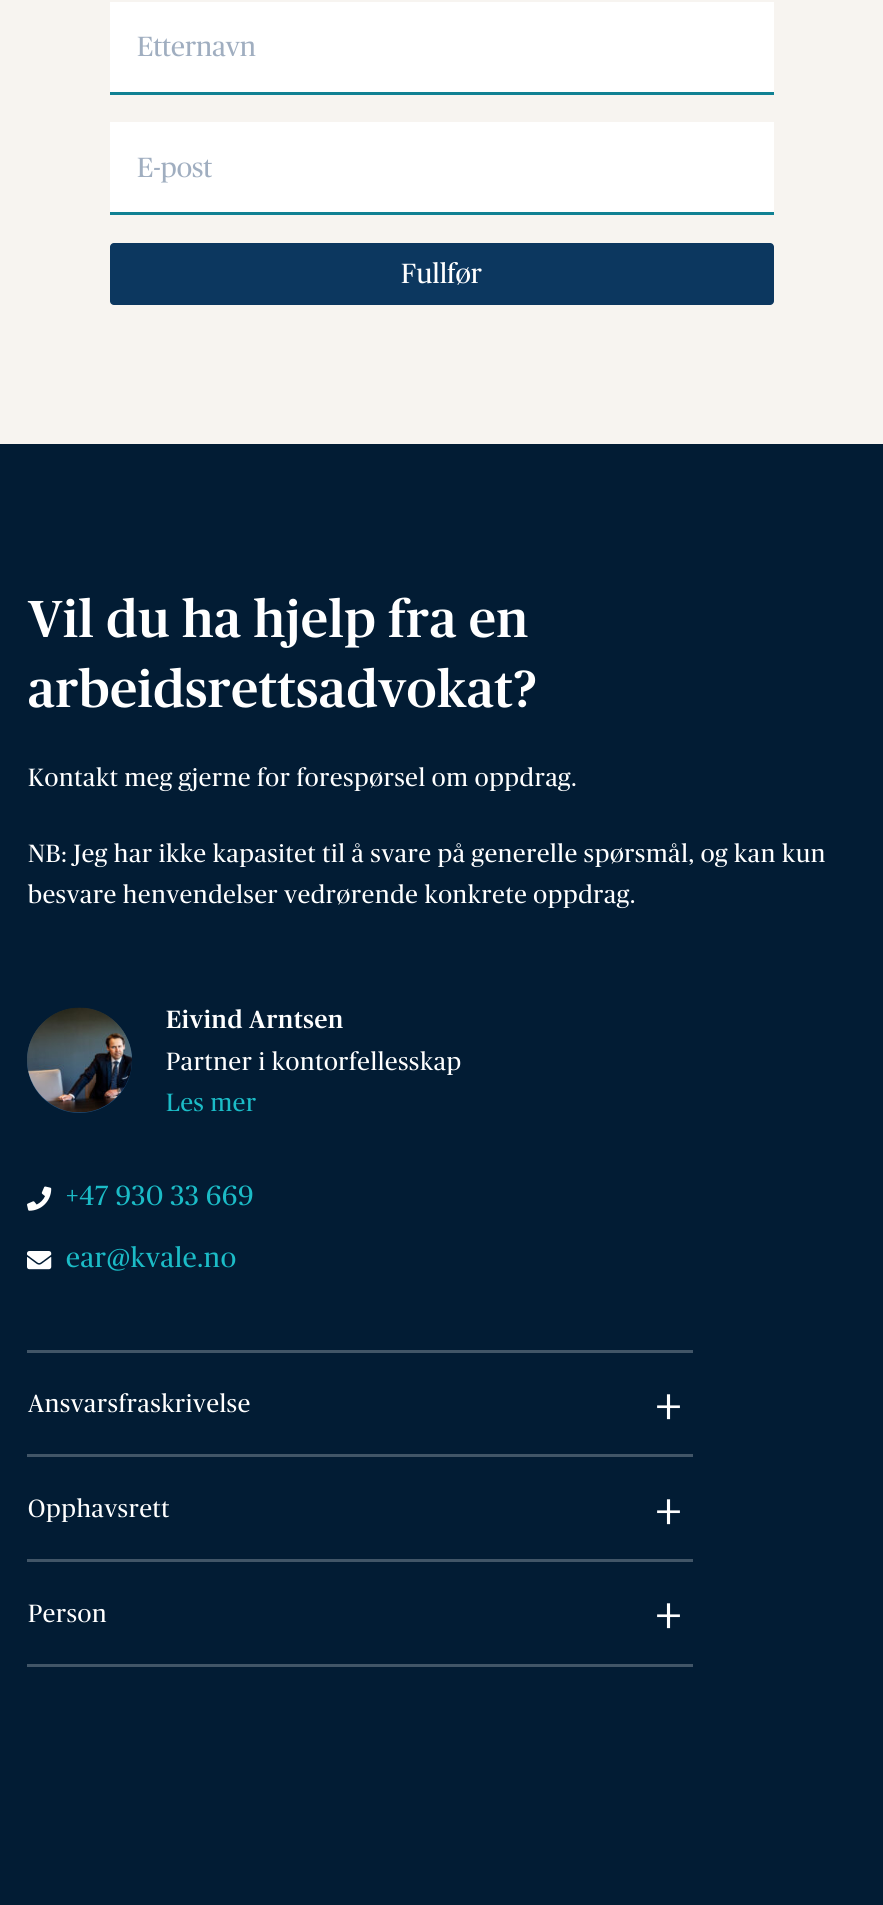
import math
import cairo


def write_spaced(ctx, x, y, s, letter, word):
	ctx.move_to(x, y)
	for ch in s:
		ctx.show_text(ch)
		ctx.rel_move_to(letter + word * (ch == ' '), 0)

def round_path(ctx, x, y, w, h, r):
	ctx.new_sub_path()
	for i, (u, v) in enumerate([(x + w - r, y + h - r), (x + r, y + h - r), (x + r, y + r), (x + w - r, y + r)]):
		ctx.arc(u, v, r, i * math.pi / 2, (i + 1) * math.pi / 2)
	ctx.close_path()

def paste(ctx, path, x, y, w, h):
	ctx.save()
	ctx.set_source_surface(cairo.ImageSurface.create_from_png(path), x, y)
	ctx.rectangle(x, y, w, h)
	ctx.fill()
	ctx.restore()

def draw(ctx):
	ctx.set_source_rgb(0.965, 0.957, 0.941)
	ctx.paint()
	ctx.set_source_rgb(1, 1, 1)
	ctx.rectangle(110, 2, 664, 90)
	ctx.fill()
	ctx.set_source_rgb(0.063, 0.506, 0.576)
	ctx.rectangle(110, 92, 664, 3)
	ctx.fill()
	ctx.select_font_face('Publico')
	ctx.set_font_size(27.75)
	ctx.set_source_rgb(0.627, 0.682, 0.753)
	ctx.move_to(137, 56)
	ctx.show_text('Etternavn')
	ctx.set_source_rgb(1, 1, 1)
	ctx.rectangle(110, 122, 664, 90)
	ctx.fill()
	ctx.set_source_rgb(0.063, 0.506, 0.576)
	ctx.rectangle(110, 212, 664, 3)
	ctx.fill()
	ctx.set_source_rgb(0.627, 0.682, 0.753)
	ctx.move_to(137, 177)
	ctx.show_text('E-post')
	ctx.set_source_rgb(0.047, 0.216, 0.373)
	round_path(ctx, 110, 243, 664, 62, 4)
	ctx.fill()
	ctx.set_source_rgb(1, 1, 1)
	ctx.move_to(401, 283)
	ctx.show_text('Fullfør')
	ctx.set_source_rgb(0.008, 0.11, 0.204)
	ctx.rectangle(0, 444, 883, 1461)
	ctx.fill()
	ctx.select_font_face('Publico Medium')
	ctx.set_font_size(52)
	ctx.set_source_rgb(1, 1, 1)
	write_spaced(ctx, 28, 637, 'Vil du ha hjelp fra en', 0.7, 0)
	write_spaced(ctx, 28, 707, 'arbeidsrettsadvokat?', 0.7, 0)
	ctx.select_font_face('Publico')
	ctx.set_font_size(24.95)
	for x, y, s in [
		(28, 786, 'Kontakt meg gjerne for forespørsel om oppdrag.'),
		(28, 862, 'NB: Jeg har ikke kapasitet til å svare på generelle spørsmål, og kan kun'),
		(28, 903, 'besvare henvendelser vedrørende konkrete oppdrag.'),
	]:
		write_spaced(ctx, x, y, s, 0.7, 0)
	ctx.set_source_rgb(0.11, 0.306, 0.486)
	ctx.new_path()
	ctx.arc(79.5, 1060.5, 52.5, 0, 2 * math.pi)
	ctx.fill()
	paste(ctx, 'media/1.png', 27, 1007, 105, 106)
	ctx.select_font_face('Publico Medium')
	ctx.set_source_rgb(1, 1, 1)
	write_spaced(ctx, 166, 1028, 'Eivind Arntsen', 0.7, 0)
	ctx.select_font_face('Publico')
	write_spaced(ctx, 166, 1070, 'Partner i kontorfellesskap', 0.7, 0)
	ctx.set_source_rgb(0.106, 0.737, 0.78)
	write_spaced(ctx, 166, 1111, 'Les mer', 0.7, 0)
	paste(ctx, 'media/2.png', 27, 1186, 25, 25)
	ctx.set_font_size(27.75)
	write_spaced(ctx, 66, 1205, '+47 930 33 669', 0.7, 0)
	paste(ctx, 'media/3.png', 27, 1251, 25, 19)
	write_spaced(ctx, 66, 1267, 'ear@kvale.no', 0.7, 0)
	ctx.set_source_rgb(0.255, 0.333, 0.404)
	ctx.rectangle(27, 1350, 666, 3)
	ctx.fill()
	ctx.rectangle(27, 1454, 666, 3)
	ctx.fill()
	ctx.set_font_size(24.95)
	ctx.set_source_rgb(1, 1, 1)
	write_spaced(ctx, 28, 1412, 'Ansvarsfraskrivelse', 0.7, 0)
	ctx.set_font_size(60)
	write_spaced(ctx, 655, 1427, '+', 0.7, 0)
	ctx.set_source_rgb(0.255, 0.333, 0.404)
	ctx.rectangle(27, 1559, 666, 3)
	ctx.fill()
	ctx.set_font_size(24.95)
	ctx.set_source_rgb(1, 1, 1)
	write_spaced(ctx, 28, 1517, 'Opphavsrett', 0.7, 0)
	ctx.set_font_size(60)
	write_spaced(ctx, 655, 1532, '+', 0.7, 0)
	ctx.set_source_rgb(0.255, 0.333, 0.404)
	ctx.rectangle(27, 1664, 666, 3)
	ctx.fill()
	ctx.set_font_size(24.95)
	ctx.set_source_rgb(1, 1, 1)
	write_spaced(ctx, 28, 1622, 'Person', 0.7, 0)
	ctx.set_font_size(60)
	write_spaced(ctx, 655, 1636, '+', 0.7, 0)


surface = cairo.ImageSurface(cairo.FORMAT_RGB24, 883, 1905)
ctx = cairo.Context(surface)
options = cairo.FontOptions()
options.set_hint_metrics(cairo.HINT_METRICS_OFF)
options.set_hint_style(cairo.HINT_STYLE_NONE)
ctx.set_font_options(options)
ctx.set_miter_limit(4)
draw(ctx)
surface.write_to_png('image.png')
